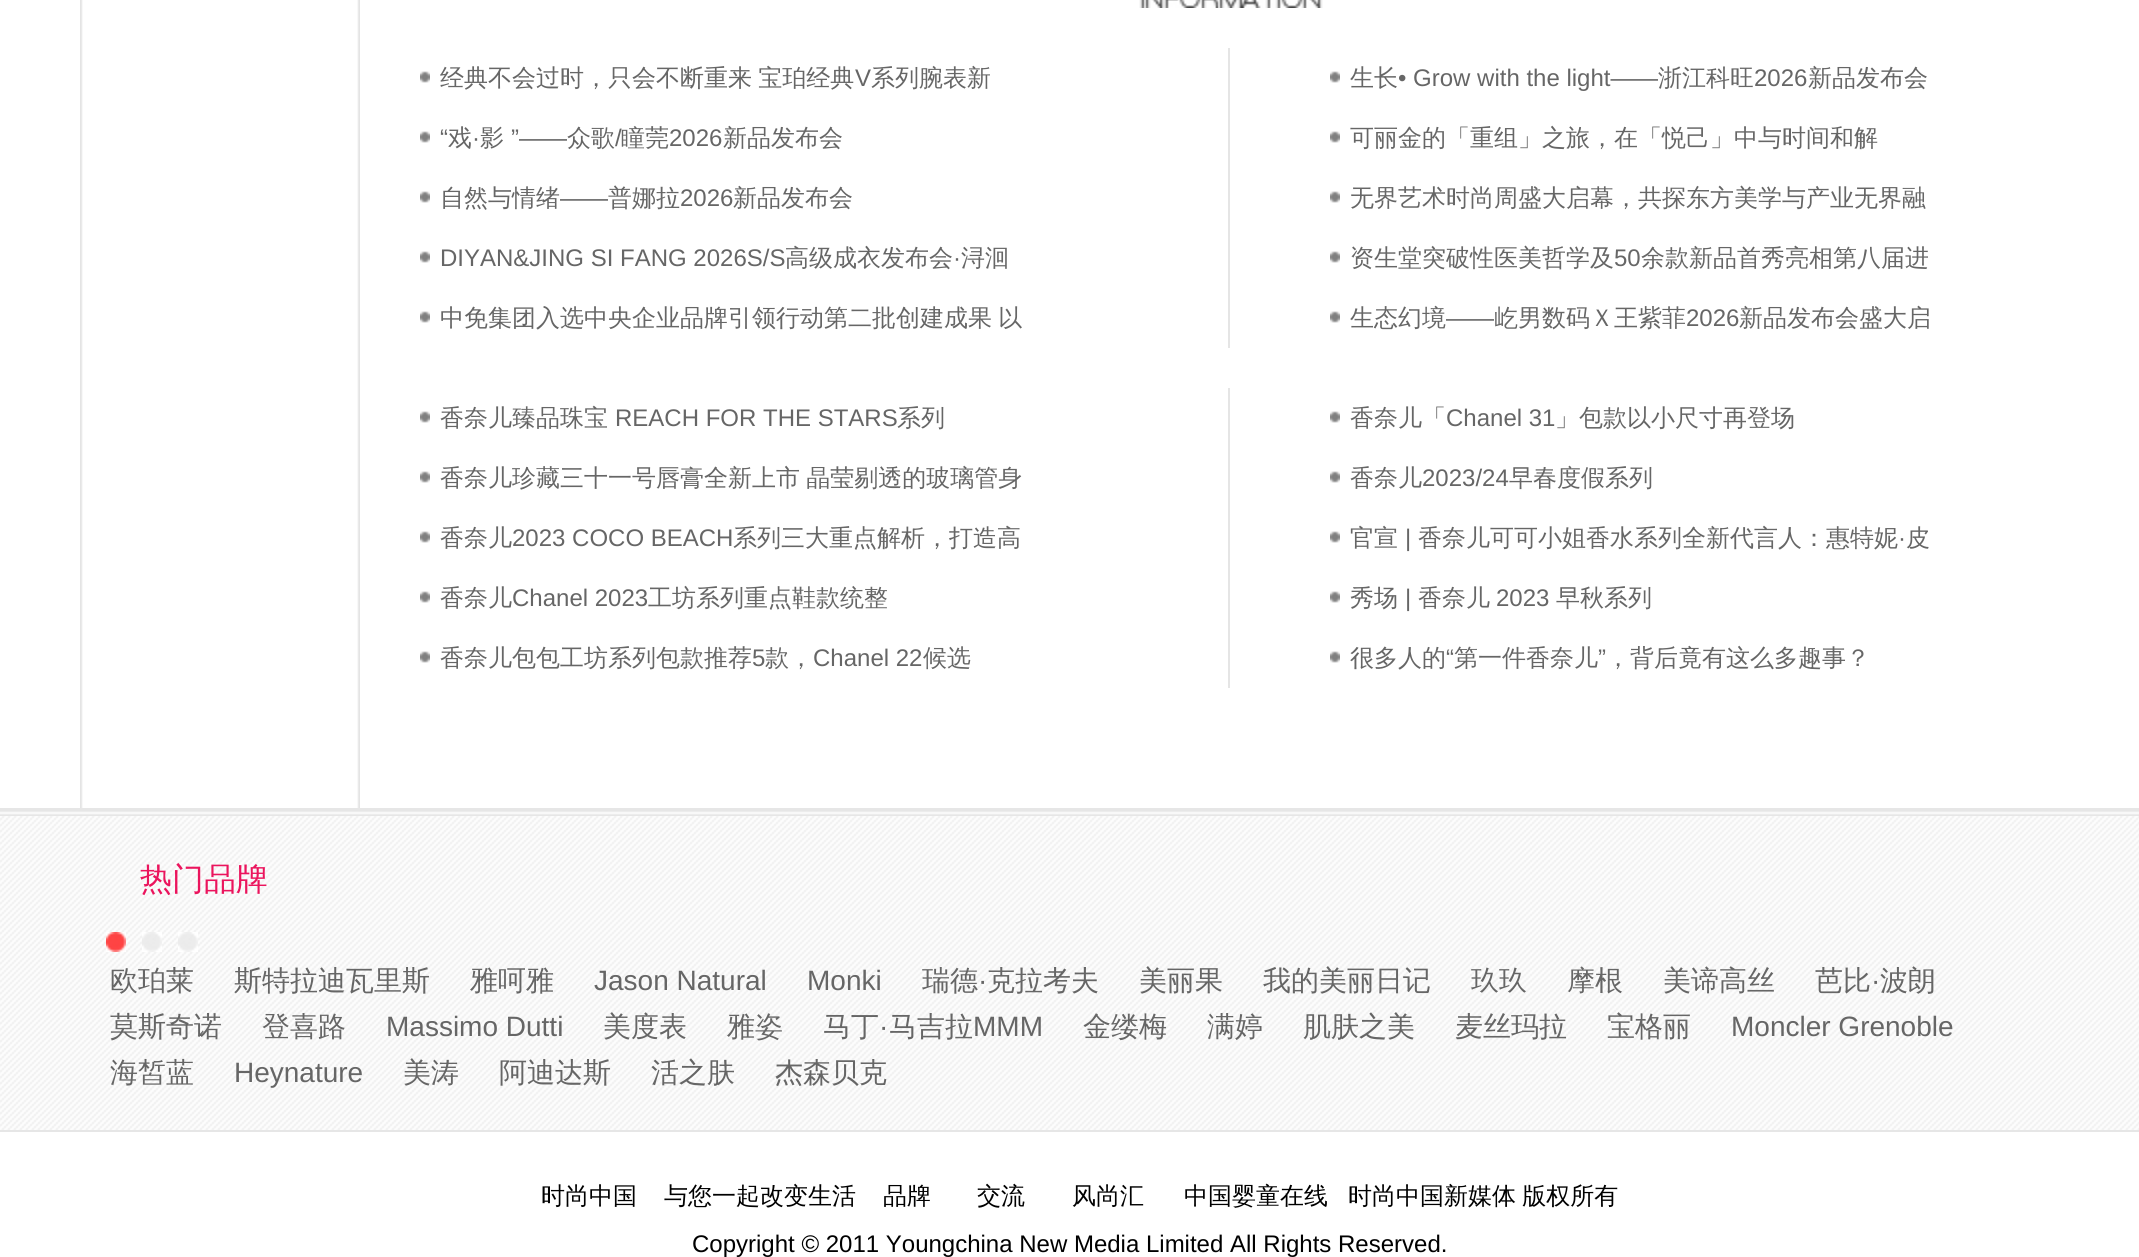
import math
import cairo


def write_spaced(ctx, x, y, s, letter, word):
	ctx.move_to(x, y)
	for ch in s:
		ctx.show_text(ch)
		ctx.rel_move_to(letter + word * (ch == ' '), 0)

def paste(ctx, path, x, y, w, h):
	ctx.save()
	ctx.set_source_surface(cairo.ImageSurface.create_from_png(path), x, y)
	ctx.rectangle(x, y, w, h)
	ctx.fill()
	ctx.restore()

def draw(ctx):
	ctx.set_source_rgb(1, 1, 1)
	ctx.paint()
	paste(ctx, 'media/1.png', 80, 0, 280, 808)
	paste(ctx, 'media/2.png', 1139, 0, 184, 8)
	paste(ctx, 'media/3.png', 420, 71, 10, 12)
	ctx.select_font_face('WenQuanYi Zen Hei Medium')
	ctx.set_font_size(24)
	ctx.set_source_rgb(0.4, 0.4, 0.4)
	write_spaced(ctx, 440, 86, '经典不会过时，只会不断重来 宝珀经典', 0, -1)
	ctx.select_font_face('Liberation Sans')
	ctx.move_to(855, 86)
	ctx.show_text('V')
	ctx.select_font_face('WenQuanYi Zen Hei Medium')
	ctx.move_to(871, 86)
	ctx.show_text('系列腕表新')
	paste(ctx, 'media/3.png', 420, 131, 10, 12)
	ctx.select_font_face('Liberation Sans')
	ctx.move_to(440, 146)
	ctx.show_text('“')
	ctx.select_font_face('WenQuanYi Zen Hei Medium')
	ctx.move_to(448, 146)
	ctx.show_text('戏')
	ctx.select_font_face('Liberation Sans')
	ctx.move_to(472, 146)
	ctx.show_text('·')
	ctx.select_font_face('WenQuanYi Zen Hei Medium')
	ctx.move_to(480, 146)
	ctx.show_text('影')
	ctx.select_font_face('Liberation Sans')
	ctx.move_to(511, 146)
	ctx.show_text('”——')
	ctx.select_font_face('WenQuanYi Zen Hei Medium')
	ctx.move_to(567, 146)
	ctx.show_text('众歌')
	ctx.select_font_face('Liberation Sans')
	ctx.move_to(615, 146)
	ctx.show_text('/')
	ctx.select_font_face('WenQuanYi Zen Hei Medium')
	ctx.move_to(621, 146)
	ctx.show_text('瞳莞')
	ctx.select_font_face('Liberation Sans')
	ctx.move_to(669, 146)
	ctx.show_text('2026')
	ctx.select_font_face('WenQuanYi Zen Hei Medium')
	ctx.move_to(723, 146)
	ctx.show_text('新品发布会')
	paste(ctx, 'media/3.png', 420, 191, 10, 12)
	ctx.move_to(440, 206)
	ctx.show_text('自然与情绪')
	ctx.select_font_face('Liberation Sans')
	ctx.move_to(560, 206)
	ctx.show_text('——')
	ctx.select_font_face('WenQuanYi Zen Hei Medium')
	ctx.move_to(608, 206)
	ctx.show_text('普娜拉')
	ctx.select_font_face('Liberation Sans')
	ctx.move_to(680, 206)
	ctx.show_text('2026')
	ctx.select_font_face('WenQuanYi Zen Hei Medium')
	ctx.move_to(733, 206)
	ctx.show_text('新品发布会')
	paste(ctx, 'media/3.png', 420, 251, 10, 12)
	ctx.select_font_face('Liberation Sans')
	ctx.move_to(440, 266)
	ctx.show_text('DIYAN&JING SI FANG 2026S/S')
	ctx.select_font_face('WenQuanYi Zen Hei Medium')
	ctx.move_to(785, 266)
	ctx.show_text('高级成衣发布会')
	ctx.select_font_face('Liberation Sans')
	ctx.move_to(953, 266)
	ctx.show_text('·')
	ctx.select_font_face('WenQuanYi Zen Hei Medium')
	ctx.move_to(961, 266)
	ctx.show_text('浔洄')
	paste(ctx, 'media/3.png', 420, 311, 10, 12)
	write_spaced(ctx, 440, 326, '中免集团入选中央企业品牌引领行动第二批创建成果 以', 0, -1)
	ctx.set_source_rgb(0.898, 0.898, 0.898)
	ctx.rectangle(1228, 48, 2, 300)
	ctx.fill()
	paste(ctx, 'media/3.png', 1330, 71, 10, 12)
	ctx.set_source_rgb(0.4, 0.4, 0.4)
	ctx.move_to(1350, 86)
	ctx.show_text('生长')
	ctx.select_font_face('Liberation Sans')
	ctx.move_to(1398, 86)
	ctx.show_text('• Grow with the light——')
	ctx.select_font_face('WenQuanYi Zen Hei Medium')
	ctx.move_to(1658, 86)
	ctx.show_text('浙江科旺')
	ctx.select_font_face('Liberation Sans')
	ctx.move_to(1754, 86)
	ctx.show_text('2026')
	ctx.select_font_face('WenQuanYi Zen Hei Medium')
	ctx.move_to(1808, 86)
	ctx.show_text('新品发布会')
	paste(ctx, 'media/3.png', 1330, 131, 10, 12)
	ctx.move_to(1350, 146)
	ctx.show_text('可丽金的「重组」之旅，在「悦己」中与时间和解')
	paste(ctx, 'media/3.png', 1330, 191, 10, 12)
	ctx.move_to(1350, 206)
	ctx.show_text('无界艺术时尚周盛大启幕，共探东方美学与产业无界融')
	paste(ctx, 'media/3.png', 1330, 251, 10, 12)
	ctx.move_to(1350, 266)
	ctx.show_text('资生堂突破性医美哲学及')
	ctx.select_font_face('Liberation Sans')
	ctx.move_to(1614, 266)
	ctx.show_text('50')
	ctx.select_font_face('WenQuanYi Zen Hei Medium')
	ctx.move_to(1641, 266)
	ctx.show_text('余款新品首秀亮相第八届进')
	paste(ctx, 'media/3.png', 1330, 311, 10, 12)
	ctx.move_to(1350, 326)
	ctx.show_text('生态幻境')
	ctx.select_font_face('Liberation Sans')
	ctx.move_to(1446, 326)
	ctx.show_text('——')
	ctx.select_font_face('WenQuanYi Zen Hei Medium')
	ctx.move_to(1494, 326)
	ctx.show_text('屹男数码Ｘ王紫菲')
	ctx.select_font_face('Liberation Sans')
	ctx.move_to(1686, 326)
	ctx.show_text('2026')
	ctx.select_font_face('WenQuanYi Zen Hei Medium')
	ctx.move_to(1739, 326)
	ctx.show_text('新品发布会盛大启')
	paste(ctx, 'media/3.png', 420, 411, 10, 12)
	ctx.move_to(440, 426)
	ctx.show_text('香奈儿臻品珠宝')
	ctx.select_font_face('Liberation Sans')
	ctx.move_to(615, 426)
	ctx.show_text('REACH FOR THE STARS')
	ctx.select_font_face('WenQuanYi Zen Hei Medium')
	ctx.move_to(897, 426)
	ctx.show_text('系列')
	paste(ctx, 'media/3.png', 420, 471, 10, 12)
	write_spaced(ctx, 440, 486, '香奈儿珍藏三十一号唇膏全新上市 晶莹剔透的玻璃管身', 0, -1)
	paste(ctx, 'media/3.png', 420, 531, 10, 12)
	ctx.move_to(440, 546)
	ctx.show_text('香奈儿')
	ctx.select_font_face('Liberation Sans')
	ctx.move_to(512, 546)
	ctx.show_text('2023 COCO BEACH')
	ctx.select_font_face('WenQuanYi Zen Hei Medium')
	ctx.move_to(733, 546)
	ctx.show_text('系列三大重点解析，打造高')
	paste(ctx, 'media/3.png', 420, 591, 10, 12)
	ctx.move_to(440, 606)
	ctx.show_text('香奈儿')
	ctx.select_font_face('Liberation Sans')
	ctx.move_to(512, 606)
	ctx.show_text('Chanel 2023')
	ctx.select_font_face('WenQuanYi Zen Hei Medium')
	ctx.move_to(648, 606)
	ctx.show_text('工坊系列重点鞋款统整')
	paste(ctx, 'media/3.png', 420, 651, 10, 12)
	ctx.move_to(440, 666)
	ctx.show_text('香奈儿包包工坊系列包款推荐')
	ctx.select_font_face('Liberation Sans')
	ctx.move_to(752, 666)
	ctx.show_text('5')
	ctx.select_font_face('WenQuanYi Zen Hei Medium')
	ctx.move_to(765, 666)
	ctx.show_text('款，')
	ctx.select_font_face('Liberation Sans')
	ctx.move_to(813, 666)
	ctx.show_text('Chanel 22')
	ctx.select_font_face('WenQuanYi Zen Hei Medium')
	ctx.move_to(923, 666)
	ctx.show_text('候选')
	ctx.set_source_rgb(0.898, 0.898, 0.898)
	ctx.rectangle(1228, 388, 2, 300)
	ctx.fill()
	paste(ctx, 'media/3.png', 1330, 411, 10, 12)
	ctx.set_source_rgb(0.4, 0.4, 0.4)
	ctx.move_to(1350, 426)
	ctx.show_text('香奈儿「')
	ctx.select_font_face('Liberation Sans')
	ctx.move_to(1446, 426)
	ctx.show_text('Chanel 31')
	ctx.select_font_face('WenQuanYi Zen Hei Medium')
	ctx.move_to(1555, 426)
	ctx.show_text('」包款以小尺寸再登场')
	paste(ctx, 'media/3.png', 1330, 471, 10, 12)
	ctx.move_to(1350, 486)
	ctx.show_text('香奈儿')
	ctx.select_font_face('Liberation Sans')
	ctx.move_to(1422, 486)
	ctx.show_text('2023/24')
	ctx.select_font_face('WenQuanYi Zen Hei Medium')
	ctx.move_to(1509, 486)
	ctx.show_text('早春度假系列')
	paste(ctx, 'media/3.png', 1330, 531, 10, 12)
	ctx.move_to(1350, 546)
	ctx.show_text('官宣')
	ctx.select_font_face('Liberation Sans')
	ctx.move_to(1405, 546)
	ctx.show_text('|')
	ctx.select_font_face('WenQuanYi Zen Hei Medium')
	ctx.move_to(1418, 546)
	ctx.show_text('香奈儿可可小姐香水系列全新代言人：惠特妮')
	ctx.select_font_face('Liberation Sans')
	ctx.move_to(1898, 546)
	ctx.show_text('·')
	ctx.select_font_face('WenQuanYi Zen Hei Medium')
	ctx.move_to(1906, 546)
	ctx.show_text('皮')
	paste(ctx, 'media/3.png', 1330, 591, 10, 12)
	ctx.move_to(1350, 606)
	ctx.show_text('秀场')
	ctx.select_font_face('Liberation Sans')
	ctx.move_to(1405, 606)
	ctx.show_text('|')
	ctx.select_font_face('WenQuanYi Zen Hei Medium')
	ctx.move_to(1418, 606)
	ctx.show_text('香奈儿')
	ctx.select_font_face('Liberation Sans')
	ctx.move_to(1496, 606)
	ctx.show_text('2023')
	ctx.select_font_face('WenQuanYi Zen Hei Medium')
	ctx.move_to(1556, 606)
	ctx.show_text('早秋系列')
	paste(ctx, 'media/3.png', 1330, 651, 10, 12)
	ctx.move_to(1350, 666)
	ctx.show_text('很多人的')
	ctx.select_font_face('Liberation Sans')
	ctx.move_to(1446, 666)
	ctx.show_text('“')
	ctx.select_font_face('WenQuanYi Zen Hei Medium')
	ctx.move_to(1454, 666)
	ctx.show_text('第一件香奈儿')
	ctx.select_font_face('Liberation Sans')
	ctx.move_to(1598, 666)
	ctx.show_text('”')
	ctx.select_font_face('WenQuanYi Zen Hei Medium')
	ctx.move_to(1606, 666)
	ctx.show_text('，背后竟有这么多趣事？')
	paste(ctx, 'media/4.png', 0, 808, 2139, 8)
	paste(ctx, 'media/5.png', 0, 816, 2139, 314)
	ctx.set_font_size(32)
	ctx.set_source_rgb(0.918, 0.082, 0.365)
	ctx.move_to(140, 890)
	ctx.show_text('热门品牌')
	paste(ctx, 'media/6.png', 106, 932, 20, 20)
	paste(ctx, 'media/7.png', 142, 932, 20, 20)
	paste(ctx, 'media/7.png', 178, 932, 20, 20)
	ctx.set_font_size(28)
	ctx.set_source_rgb(0.4, 0.4, 0.4)
	for x, y, s in [
		(110, 990, '欧珀莱'),
		(234, 990, '斯特拉迪瓦里斯'),
		(470, 990, '雅呵雅'),
	]:
		ctx.move_to(x, y)
		ctx.show_text(s)
	ctx.select_font_face('Liberation Sans')
	ctx.move_to(594, 990)
	ctx.show_text('Jason Natural')
	ctx.move_to(807, 990)
	ctx.show_text('Monki')
	ctx.select_font_face('WenQuanYi Zen Hei Medium')
	ctx.move_to(922, 990)
	ctx.show_text('瑞德')
	ctx.select_font_face('Liberation Sans')
	ctx.move_to(978, 990)
	ctx.show_text('·')
	ctx.select_font_face('WenQuanYi Zen Hei Medium')
	for x, y, s in [
		(987, 990, '克拉考夫'),
		(1139, 990, '美丽果'),
		(1263, 990, '我的美丽日记'),
		(1471, 990, '玖玖'),
		(1567, 990, '摩根'),
		(1663, 990, '美谛高丝'),
		(1815, 990, '芭比'),
	]:
		ctx.move_to(x, y)
		ctx.show_text(s)
	ctx.select_font_face('Liberation Sans')
	ctx.move_to(1871, 990)
	ctx.show_text('·')
	ctx.select_font_face('WenQuanYi Zen Hei Medium')
	for x, y, s in [
		(1880, 990, '波朗'),
		(110, 1036, '莫斯奇诺'),
		(262, 1036, '登喜路'),
	]:
		ctx.move_to(x, y)
		ctx.show_text(s)
	ctx.select_font_face('Liberation Sans')
	ctx.move_to(386, 1036)
	ctx.show_text('Massimo Dutti')
	ctx.select_font_face('WenQuanYi Zen Hei Medium')
	for x, y, s in [
		(603, 1036, '美度表'),
		(727, 1036, '雅姿'),
		(823, 1036, '马丁'),
	]:
		ctx.move_to(x, y)
		ctx.show_text(s)
	ctx.select_font_face('Liberation Sans')
	ctx.move_to(879, 1036)
	ctx.show_text('·')
	ctx.select_font_face('WenQuanYi Zen Hei Medium')
	ctx.move_to(889, 1036)
	ctx.show_text('马吉拉')
	ctx.select_font_face('Liberation Sans')
	ctx.move_to(973, 1036)
	ctx.show_text('MMM')
	ctx.select_font_face('WenQuanYi Zen Hei Medium')
	for x, y, s in [
		(1083, 1036, '金缕梅'),
		(1207, 1036, '满婷'),
		(1303, 1036, '肌肤之美'),
		(1455, 1036, '麦丝玛拉'),
		(1607, 1036, '宝格丽'),
	]:
		ctx.move_to(x, y)
		ctx.show_text(s)
	ctx.select_font_face('Liberation Sans')
	ctx.move_to(1731, 1036)
	ctx.show_text('Moncler Grenoble')
	ctx.select_font_face('WenQuanYi Zen Hei Medium')
	ctx.move_to(110, 1082)
	ctx.show_text('海皙蓝')
	ctx.select_font_face('Liberation Sans')
	ctx.move_to(234, 1082)
	ctx.show_text('Heynature')
	ctx.select_font_face('WenQuanYi Zen Hei Medium')
	for x, y, s in [
		(403, 1082, '美涛'),
		(499, 1082, '阿迪达斯'),
		(651, 1082, '活之肤'),
		(775, 1082, '杰森贝克'),
	]:
		ctx.move_to(x, y)
		ctx.show_text(s)
	ctx.set_source_rgb(0.902, 0.902, 0.902)
	ctx.rectangle(0, 1130, 2139, 2)
	ctx.fill()
	ctx.set_font_size(24)
	ctx.set_source_rgb(0, 0, 0)
	for x, y, s in [
		(541, 1204, '时尚中国'),
		(664, 1204, '与您一起改变生活'),
		(883, 1204, '品牌'),
		(977, 1204, '交流'),
		(1072, 1204, '风尚汇'),
		(1184, 1204, '中国婴童在线'),
	]:
		ctx.move_to(x, y)
		ctx.show_text(s)
	write_spaced(ctx, 1348, 1204, '时尚中国新媒体 版权所有', 0, -1)
	ctx.select_font_face('Liberation Sans')
	ctx.move_to(692, 1252)
	ctx.show_text('Copyright © 2011 Youngchina New Media Limited All Rights Reserved.')


surface = cairo.ImageSurface(cairo.FORMAT_RGB24, 2139, 1257)
ctx = cairo.Context(surface)
options = cairo.FontOptions()
options.set_hint_metrics(cairo.HINT_METRICS_OFF)
options.set_hint_style(cairo.HINT_STYLE_NONE)
ctx.set_font_options(options)
ctx.set_miter_limit(4)
draw(ctx)
surface.write_to_png('image.png')
